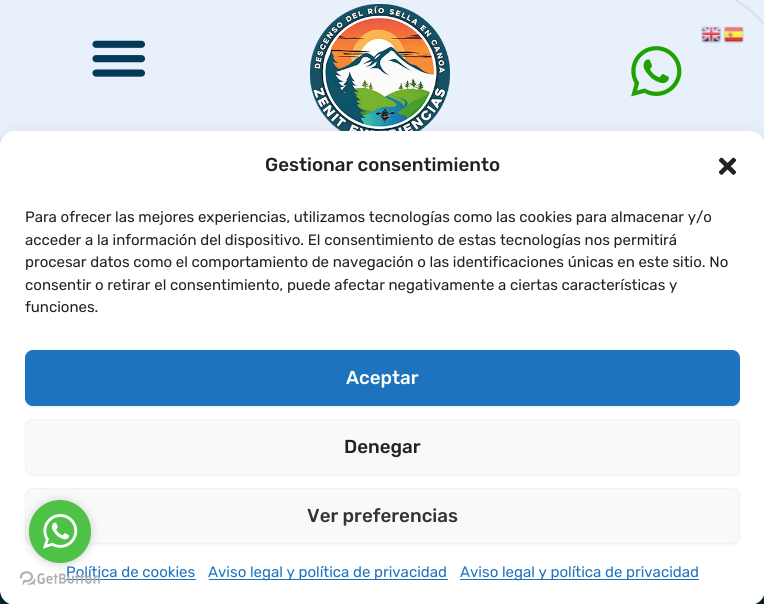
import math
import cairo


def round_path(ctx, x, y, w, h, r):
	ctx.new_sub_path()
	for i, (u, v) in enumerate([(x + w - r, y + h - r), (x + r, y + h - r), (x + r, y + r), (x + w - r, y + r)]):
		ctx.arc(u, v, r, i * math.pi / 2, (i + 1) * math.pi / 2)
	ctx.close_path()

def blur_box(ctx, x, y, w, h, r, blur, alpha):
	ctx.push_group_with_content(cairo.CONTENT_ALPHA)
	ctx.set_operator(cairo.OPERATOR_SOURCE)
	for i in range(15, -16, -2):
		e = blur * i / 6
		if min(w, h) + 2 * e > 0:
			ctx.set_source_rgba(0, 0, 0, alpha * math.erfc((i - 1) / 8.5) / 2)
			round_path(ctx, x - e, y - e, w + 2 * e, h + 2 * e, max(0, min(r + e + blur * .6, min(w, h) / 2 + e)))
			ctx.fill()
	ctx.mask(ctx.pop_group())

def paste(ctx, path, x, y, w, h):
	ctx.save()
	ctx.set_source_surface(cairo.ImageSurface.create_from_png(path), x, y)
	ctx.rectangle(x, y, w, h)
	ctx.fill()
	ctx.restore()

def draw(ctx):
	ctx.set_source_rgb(0.91, 0.941, 0.988)
	ctx.paint()
	paste(ctx, 'media/1.png', 92, 40, 54, 37)
	paste(ctx, 'media/2.png', 310, 4, 140, 127)
	paste(ctx, 'media/3.png', 631, 46, 51, 51)
	paste(ctx, 'media/4.png', 734, 0, 30, 26)
	ctx.set_source_rgb(0.016, 0.165, 0.212)
	ctx.rectangle(0, 590, 764, 14)
	ctx.fill()
	paste(ctx, 'media/5.png', 0, 595, 2, 3)
	paste(ctx, 'media/6.png', 701, 26, 21, 18)
	paste(ctx, 'media/7.png', 723, 26, 21, 18)
	ctx.set_source_rgb(0, 0, 0)
	blur_box(ctx, 0, 139, 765, 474, 15, 4, 0.23)
	blur_box(ctx, 0, 144, 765, 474, 15, 12.5, 0.19)
	ctx.set_source_rgb(1, 1, 1)
	round_path(ctx, 0, 131, 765, 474, 15)
	ctx.fill()
	ctx.select_font_face('Rubik Medium')
	ctx.set_font_size(18.75)
	ctx.set_source_rgb(0.133, 0.133, 0.133)
	ctx.move_to(265, 171)
	ctx.show_text('Gestionar consentimiento')
	paste(ctx, 'media/8.png', 718, 157, 19, 18)
	ctx.select_font_face('Rubik')
	ctx.set_font_size(15)
	for x, y, s in [
		(25, 222, 'Para ofrecer las mejores experiencias, utilizamos tecnologías como las cookies para almacenar y/o'),
		(25, 245, 'acceder a la información del dispositivo. El consentimiento de estas tecnologías nos permitirá'),
		(25, 267, 'procesar datos como el comportamiento de navegación o las identificaciones únicas en este sitio. No'),
		(25, 290, 'consentir o retirar el consentimiento, puede afectar negativamente a ciertas características y'),
		(25, 312, 'funciones.'),
	]:
		ctx.move_to(x, y)
		ctx.show_text(s)
	ctx.set_source_rgb(0, 0, 0)
	blur_box(ctx, 25, 351, 715, 57, 8, 1, 0.05)
	ctx.set_source_rgb(0.118, 0.451, 0.745)
	round_path(ctx, 25.5, 350.5, 714, 55, 7.5)
	ctx.fill_preserve()
	ctx.set_line_width(1)
	ctx.stroke()
	ctx.select_font_face('Rubik Medium')
	ctx.set_font_size(18.75)
	ctx.set_source_rgb(1, 1, 1)
	ctx.move_to(346, 384)
	ctx.show_text('Aceptar')
	ctx.set_source_rgb(0, 0, 0)
	blur_box(ctx, 25, 420, 715, 56, 8, 1, 0.05)
	ctx.set_source_rgb(0.976, 0.976, 0.976)
	round_path(ctx, 25.5, 419.5, 714, 55, 7.5)
	ctx.fill_preserve()
	ctx.set_source_rgb(0.949, 0.949, 0.949)
	ctx.stroke()
	ctx.set_source_rgb(0.133, 0.133, 0.133)
	ctx.move_to(344, 453)
	ctx.show_text('Denegar')
	ctx.set_source_rgb(0, 0, 0)
	blur_box(ctx, 25, 489, 715, 56, 8, 1, 0.05)
	ctx.set_source_rgb(0.976, 0.976, 0.976)
	round_path(ctx, 25.5, 488.5, 714, 55, 7.5)
	ctx.fill_preserve()
	ctx.set_source_rgb(0.949, 0.949, 0.949)
	ctx.stroke()
	ctx.set_source_rgb(0.2, 0.2, 0.2)
	ctx.move_to(307, 522)
	ctx.show_text('Ver preferencias')
	ctx.select_font_face('Rubik')
	ctx.set_font_size(15)
	ctx.set_source_rgb(0.118, 0.451, 0.745)
	ctx.move_to(66, 577)
	ctx.show_text('Política de cookies')
	ctx.rectangle(66, 579, 130, 1)
	ctx.fill()
	ctx.rectangle(209, 579, 239, 1)
	ctx.fill()
	ctx.move_to(208, 577)
	ctx.show_text('Aviso legal y política de privacidad')
	ctx.rectangle(460, 579, 239, 1)
	ctx.fill()
	ctx.move_to(460, 577)
	ctx.show_text('Aviso legal y política de privacidad')
	paste(ctx, 'media/10.png', 20, 571, 80, 14)
	ctx.set_source_rgb(0.533, 0.533, 0.533)
	blur_box(ctx, 29, 501, 62, 63, 31, 4.5, 0.4)
	ctx.set_source_rgb(0.302, 0.761, 0.278)
	round_path(ctx, 29, 500, 62, 63, 31)
	ctx.fill()
	paste(ctx, 'media/9.png', 42, 514, 36, 35)


surface = cairo.ImageSurface(cairo.FORMAT_RGB24, 764, 604)
ctx = cairo.Context(surface)
options = cairo.FontOptions()
options.set_hint_metrics(cairo.HINT_METRICS_OFF)
options.set_hint_style(cairo.HINT_STYLE_NONE)
ctx.set_font_options(options)
ctx.set_miter_limit(4)
draw(ctx)
surface.write_to_png('image.png')
